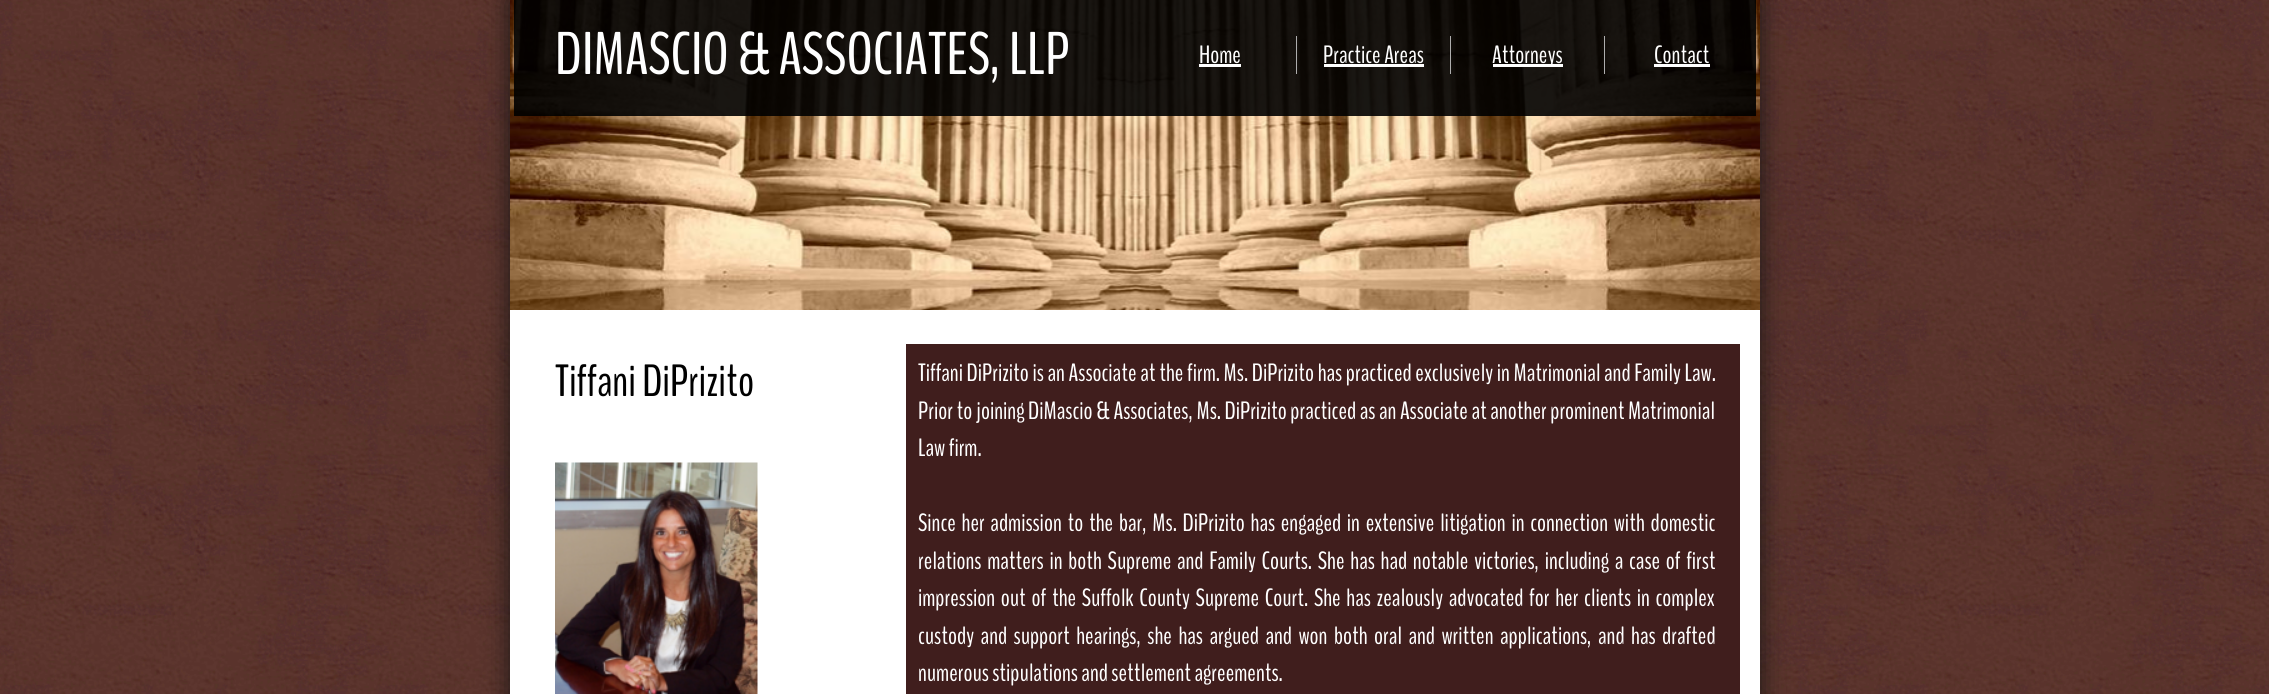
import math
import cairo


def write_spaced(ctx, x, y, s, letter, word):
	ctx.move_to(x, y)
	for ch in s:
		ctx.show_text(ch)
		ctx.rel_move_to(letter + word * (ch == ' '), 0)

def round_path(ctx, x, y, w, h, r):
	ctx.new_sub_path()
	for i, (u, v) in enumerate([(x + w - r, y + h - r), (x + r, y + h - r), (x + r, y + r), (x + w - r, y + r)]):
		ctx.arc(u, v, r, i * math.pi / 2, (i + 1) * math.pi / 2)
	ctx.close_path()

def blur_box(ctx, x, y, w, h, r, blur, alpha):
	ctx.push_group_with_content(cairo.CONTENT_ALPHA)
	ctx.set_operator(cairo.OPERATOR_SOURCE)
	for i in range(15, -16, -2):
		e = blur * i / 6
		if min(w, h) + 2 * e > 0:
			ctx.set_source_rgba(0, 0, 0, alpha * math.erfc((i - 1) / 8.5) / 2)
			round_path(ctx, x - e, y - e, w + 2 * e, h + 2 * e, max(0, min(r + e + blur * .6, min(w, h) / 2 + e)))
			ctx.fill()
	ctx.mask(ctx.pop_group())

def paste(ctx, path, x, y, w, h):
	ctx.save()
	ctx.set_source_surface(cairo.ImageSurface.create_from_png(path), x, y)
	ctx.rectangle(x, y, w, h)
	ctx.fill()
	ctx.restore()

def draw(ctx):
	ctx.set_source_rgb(1, 1, 1)
	ctx.paint()
	paste(ctx, 'media/1.png', 0, 0, 2269, 694)
	ctx.set_source_rgb(0.078, 0.078, 0.078)
	blur_box(ctx, 510, 0, 1250, 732, 0, 12.5, 0.9)
	ctx.set_source_rgb(1, 1, 1)
	ctx.rectangle(510, 310, 1250, 384)
	ctx.fill()
	paste(ctx, 'media/2.png', 510, 0, 1250, 310)
	ctx.set_source_rgba(0, 0, 0, 0.9)
	ctx.rectangle(514, 0, 1242, 116)
	ctx.fill()
	ctx.select_font_face('BenchNine')
	ctx.set_font_size(60)
	ctx.set_source_rgb(1, 1, 1)
	ctx.move_to(555, 74)
	ctx.show_text('DIMASCIO & ASSOCIATES, LLP')
	ctx.set_source_rgb(0.682, 0.682, 0.682)
	ctx.rectangle(1296, 36, 1, 38)
	ctx.fill()
	ctx.set_font_size(25)
	ctx.set_source_rgb(1, 1, 1)
	ctx.move_to(1199, 63)
	ctx.show_text('Home')
	ctx.rectangle(1199, 64, 42, 3)
	ctx.fill()
	ctx.set_source_rgb(0.682, 0.682, 0.682)
	ctx.rectangle(1450, 36, 1, 38)
	ctx.fill()
	ctx.set_source_rgb(1, 1, 1)
	ctx.move_to(1323, 63)
	ctx.show_text('Practice Areas')
	ctx.rectangle(1324, 64, 100, 3)
	ctx.fill()
	ctx.set_source_rgb(0.682, 0.682, 0.682)
	ctx.rectangle(1604, 36, 1, 38)
	ctx.fill()
	ctx.set_source_rgb(1, 1, 1)
	ctx.rectangle(1493, 64, 70, 3)
	ctx.fill()
	ctx.move_to(1492, 63)
	ctx.show_text('Attorneys')
	ctx.move_to(1654, 63)
	ctx.show_text('Contact')
	ctx.rectangle(1654, 64, 56, 3)
	ctx.fill()
	ctx.set_source_rgb(0.251, 0.118, 0.114)
	ctx.rectangle(906, 344, 834, 350)
	ctx.fill()
	ctx.set_font_size(45)
	ctx.set_source_rgb(0, 0, 0)
	ctx.move_to(555, 396)
	ctx.show_text('Tiffani DiPrizito')
	ctx.set_font_size(25)
	ctx.set_source_rgb(1, 1, 1)
	write_spaced(ctx, 918, 381, 'Tiffani DiPrizito is an Associate at the firm. Ms. DiPrizito has practiced exclusively in Matrimonial and Family Law.', 0, 0.2)
	write_spaced(ctx, 918, 419, 'Prior to joining DiMascio & Associates, Ms. DiPrizito practiced as an Associate at another prominent Matrimonial', 0, 0.1)
	ctx.move_to(918, 456)
	ctx.show_text('Law firm.')
	for x, y, s in [
		(918, 531, 'Since her admission to the bar, Ms. DiPrizito has engaged in extensive litigation in connection with domestic'),
		(918, 569, 'relations matters in both Supreme and Family Courts. She has had notable victories, including a case of first'),
		(918, 606, 'impression out of the Suffolk County Supreme Court. She has zealously advocated for her clients in complex'),
	]:
		write_spaced(ctx, x, y, s, 0, 2.25)
	write_spaced(ctx, 918, 644, 'custody and support hearings, she has argued and won both oral and written applications, and has drafted', 0, 3)
	ctx.move_to(918, 681)
	ctx.show_text('numerous stipulations and settlement agreements.')
	paste(ctx, 'media/3.png', 555, 462, 203, 232)


surface = cairo.ImageSurface(cairo.FORMAT_RGB24, 2269, 694)
ctx = cairo.Context(surface)
options = cairo.FontOptions()
options.set_hint_metrics(cairo.HINT_METRICS_OFF)
options.set_hint_style(cairo.HINT_STYLE_NONE)
ctx.set_font_options(options)
ctx.set_miter_limit(4)
draw(ctx)
surface.write_to_png('image.png')
